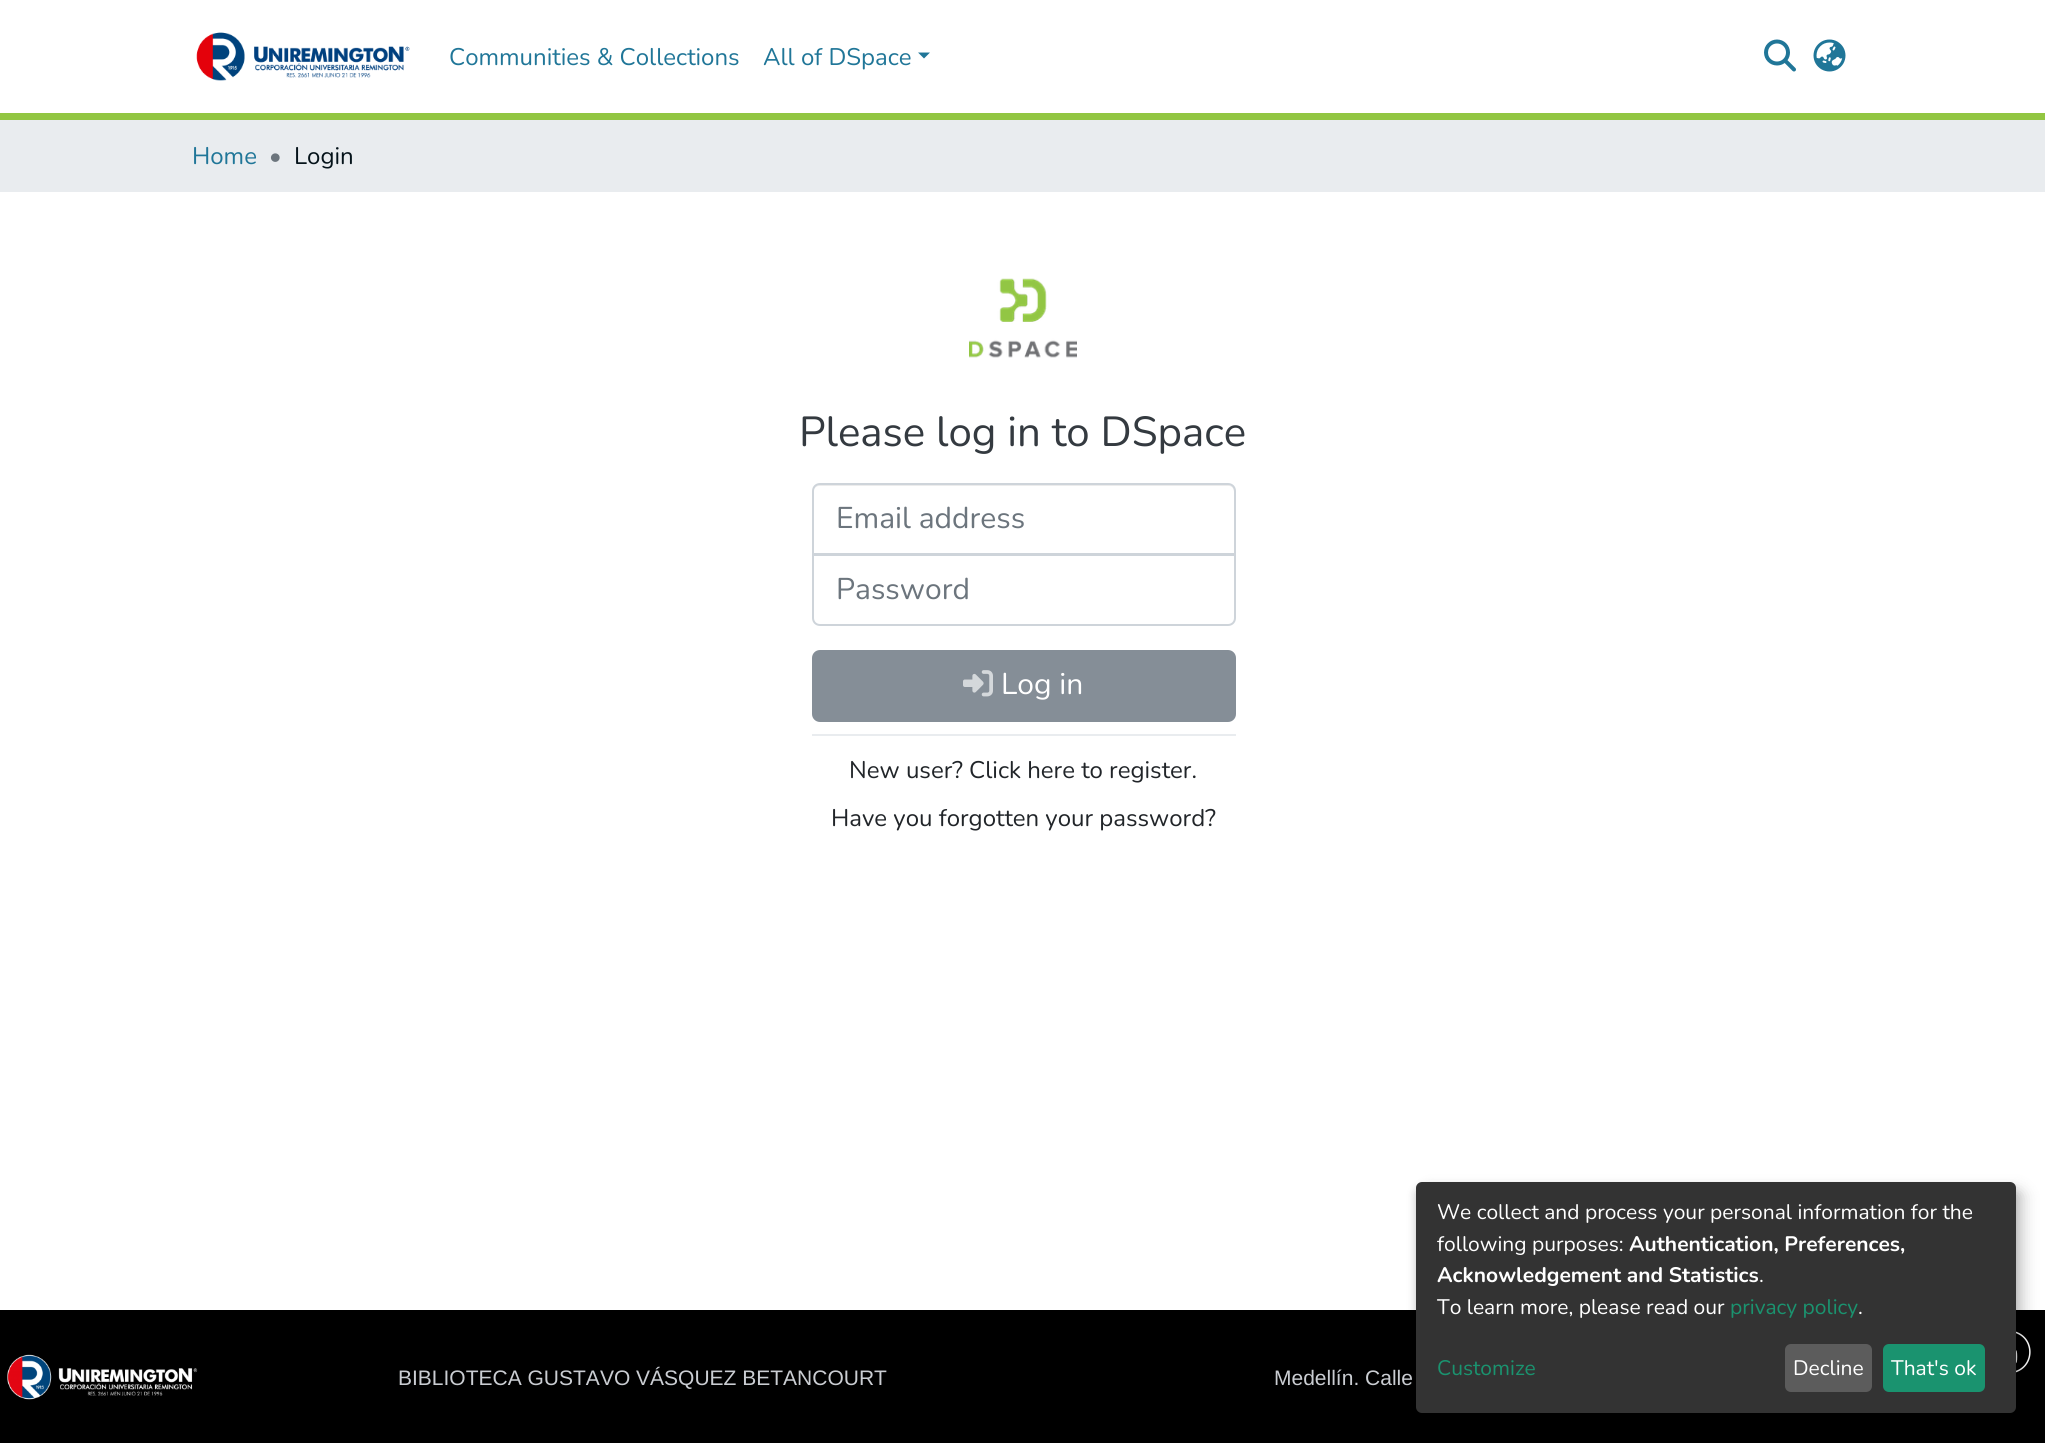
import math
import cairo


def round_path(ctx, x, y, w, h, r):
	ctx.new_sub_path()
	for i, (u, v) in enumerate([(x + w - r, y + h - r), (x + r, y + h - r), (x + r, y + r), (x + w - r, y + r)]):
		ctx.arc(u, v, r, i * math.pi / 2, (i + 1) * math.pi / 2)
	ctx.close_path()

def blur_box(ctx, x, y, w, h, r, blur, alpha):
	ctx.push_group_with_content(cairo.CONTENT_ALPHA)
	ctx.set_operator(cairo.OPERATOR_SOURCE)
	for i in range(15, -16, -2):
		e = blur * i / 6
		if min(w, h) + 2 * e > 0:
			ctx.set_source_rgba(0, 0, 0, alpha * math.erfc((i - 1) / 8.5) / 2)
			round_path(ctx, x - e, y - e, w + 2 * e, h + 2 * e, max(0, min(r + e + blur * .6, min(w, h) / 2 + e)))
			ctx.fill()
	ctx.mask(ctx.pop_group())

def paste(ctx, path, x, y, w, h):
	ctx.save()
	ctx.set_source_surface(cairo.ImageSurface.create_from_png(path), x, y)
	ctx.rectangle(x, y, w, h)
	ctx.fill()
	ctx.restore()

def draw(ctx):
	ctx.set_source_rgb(1, 1, 1)
	ctx.paint()
	ctx.set_source_rgb(0.573, 0.776, 0.259)
	ctx.rectangle(0, 113, 2045, 7)
	ctx.fill()
	paste(ctx, 'media/1.png', 196, 32, 214, 49)
	ctx.select_font_face('Nunito')
	ctx.set_font_size(24)
	ctx.set_source_rgb(0.125, 0.463, 0.596)
	ctx.move_to(449, 65)
	ctx.show_text('Communities & Collections')
	ctx.move_to(763, 65)
	ctx.show_text('All of DSpace')
	ctx.new_path()
	ctx.move_to(918, 52.5)
	ctx.line_to(930, 52.5)
	ctx.line_to(924, 58.5)
	ctx.close_path()
	ctx.fill()
	paste(ctx, 'media/2.png', 1764, 39, 32, 33)
	paste(ctx, 'media/3.png', 1813, 39, 33, 33)
	ctx.set_source_rgb(0.914, 0.925, 0.937)
	ctx.rectangle(0, 120, 2045, 72)
	ctx.fill()
	ctx.set_source_rgb(0.125, 0.463, 0.596)
	ctx.move_to(192, 164)
	ctx.show_text('Home')
	ctx.set_source_rgb(0.424, 0.459, 0.49)
	ctx.move_to(269, 164)
	ctx.show_text('•')
	ctx.set_source_rgb(0.02, 0.078, 0.102)
	ctx.move_to(294, 164)
	ctx.show_text('Login')
	paste(ctx, 'media/4.png', 969, 278, 108, 80)
	ctx.set_font_size(42)
	ctx.set_source_rgb(0.204, 0.227, 0.251)
	ctx.move_to(799, 446)
	ctx.show_text('Please log in to DSpace')
	ctx.set_source_rgb(0.925, 0.925, 0.925)
	ctx.new_path()
	ctx.move_to(819, 486)
	ctx.line_to(1229, 486)
	ctx.curve_to(1232, 486, 1234, 489, 1234, 492)
	ctx.line_to(1234, 554)
	ctx.line_to(1235, 554)
	ctx.line_to(1235, 491)
	ctx.curve_to(1235, 488, 1232, 485, 1229, 485)
	ctx.line_to(819, 485)
	ctx.curve_to(816, 485, 813, 488, 813, 491)
	ctx.line_to(813, 492)
	ctx.curve_to(813, 489, 816, 486, 819, 486)
	ctx.close_path()
	ctx.fill()
	ctx.new_path()
	ctx.move_to(820, 484)
	ctx.line_to(1228, 484)
	ctx.curve_to(1232, 484, 1235, 487, 1235, 491)
	ctx.line_to(1235, 554)
	ctx.line_to(813, 554)
	ctx.line_to(813, 491)
	ctx.curve_to(813, 487, 816, 484, 820, 484)
	ctx.close_path()
	ctx.set_source_rgb(0.808, 0.831, 0.855)
	ctx.stroke()
	ctx.set_font_size(30)
	ctx.set_source_rgb(0.424, 0.459, 0.49)
	ctx.move_to(836, 528)
	ctx.show_text('Email address')
	ctx.new_path()
	ctx.move_to(813, 555)
	ctx.line_to(1235, 555)
	ctx.line_to(1235, 618)
	ctx.curve_to(1235, 622, 1232, 625, 1228, 625)
	ctx.line_to(820, 625)
	ctx.curve_to(816, 625, 813, 622, 813, 618)
	ctx.close_path()
	ctx.set_source_rgb(0.808, 0.831, 0.855)
	ctx.stroke()
	ctx.set_source_rgb(0.424, 0.459, 0.49)
	ctx.move_to(836, 599)
	ctx.show_text('Password')
	ctx.set_source_rgb(0.522, 0.557, 0.592)
	round_path(ctx, 813, 651, 422, 70, 7)
	ctx.fill_preserve()
	ctx.stroke()
	paste(ctx, 'media/5.png', 963, 670, 30, 27)
	ctx.set_source_rgb(1, 1, 1)
	ctx.move_to(1001, 694)
	ctx.show_text('Log in')
	ctx.set_source_rgb(0.914, 0.925, 0.937)
	ctx.rectangle(812, 734, 424, 2)
	ctx.fill()
	ctx.set_font_size(24)
	ctx.set_source_rgb(0.129, 0.145, 0.161)
	ctx.move_to(849, 778)
	ctx.show_text('New user? Click here to register.')
	ctx.move_to(831, 826)
	ctx.show_text('Have you forgotten your password?')
	ctx.set_source_rgb(0, 0, 0)
	ctx.rectangle(0, 1310, 2045, 133)
	ctx.fill()
	paste(ctx, 'media/6.png', 7, 1354, 191, 46)
	ctx.select_font_face('Liberation Sans')
	ctx.set_font_size(21)
	ctx.set_source_rgb(0.792, 0.804, 0.824)
	ctx.move_to(398, 1385)
	ctx.show_text('BIBLIOTECA GUSTAVO VÁSQUEZ BETANCOURT')
	ctx.move_to(1274, 1385)
	ctx.show_text('Medellín. Calle')
	ctx.new_path()
	ctx.move_to(2007, 1331)
	ctx.curve_to(2037.5, 1331, 2037.5, 1373, 2007, 1373)
	ctx.curve_to(1976.5, 1373, 1976.5, 1331, 2007, 1331)
	ctx.close_path()
	ctx.set_source_rgb(1, 1, 1)
	ctx.set_line_width(1.5)
	ctx.stroke()
	paste(ctx, 'media/7.png', 2016, 1350, 2, 14)
	ctx.set_source_rgb(0, 0, 0)
	blur_box(ctx, 1424, 1190, 600, 231, 6, 7.5, 0.19)
	blur_box(ctx, 1416, 1188, 600, 231, 6, 4.5, 0.2)
	ctx.set_source_rgb(0.2, 0.2, 0.2)
	round_path(ctx, 1416, 1182, 600, 231, 6)
	ctx.fill()
	ctx.select_font_face('Nunito')
	ctx.set_source_rgb(1, 1, 1)
	ctx.move_to(1437, 1219)
	ctx.show_text('We collect and process your personal information for the')
	ctx.move_to(1437, 1251)
	ctx.show_text('following purposes:')
	ctx.select_font_face('Nunito', cairo.FONT_SLANT_NORMAL, cairo.FONT_WEIGHT_BOLD)
	ctx.move_to(1629, 1251)
	ctx.show_text('Authentication, Preferences,')
	ctx.move_to(1437, 1282)
	ctx.show_text('Acknowledgement and Statistics')
	ctx.select_font_face('Nunito')
	ctx.move_to(1759, 1282)
	ctx.show_text('.')
	ctx.move_to(1437, 1314)
	ctx.show_text('To learn more, please read our')
	ctx.set_source_rgb(0.102, 0.576, 0.435)
	ctx.move_to(1730, 1314)
	ctx.show_text('privacy policy')
	ctx.set_source_rgb(1, 1, 1)
	ctx.move_to(1858, 1314)
	ctx.show_text('.')
	ctx.set_source_rgb(0.102, 0.576, 0.435)
	ctx.move_to(1437, 1375)
	ctx.show_text('Customize')
	ctx.set_source_rgb(0.361, 0.361, 0.361)
	round_path(ctx, 1785, 1344, 87, 48, 6)
	ctx.fill()
	ctx.set_source_rgb(1, 1, 1)
	ctx.move_to(1793, 1375)
	ctx.show_text('Decline')
	ctx.set_source_rgb(0.102, 0.576, 0.435)
	round_path(ctx, 1883, 1344, 102, 48, 6)
	ctx.fill()
	ctx.set_source_rgb(1, 1, 1)
	ctx.move_to(1891, 1375)
	ctx.show_text('That\'s ok')


surface = cairo.ImageSurface(cairo.FORMAT_RGB24, 2045, 1443)
ctx = cairo.Context(surface)
options = cairo.FontOptions()
options.set_hint_metrics(cairo.HINT_METRICS_OFF)
options.set_hint_style(cairo.HINT_STYLE_NONE)
ctx.set_font_options(options)
ctx.set_miter_limit(4)
draw(ctx)
surface.write_to_png('image.png')
